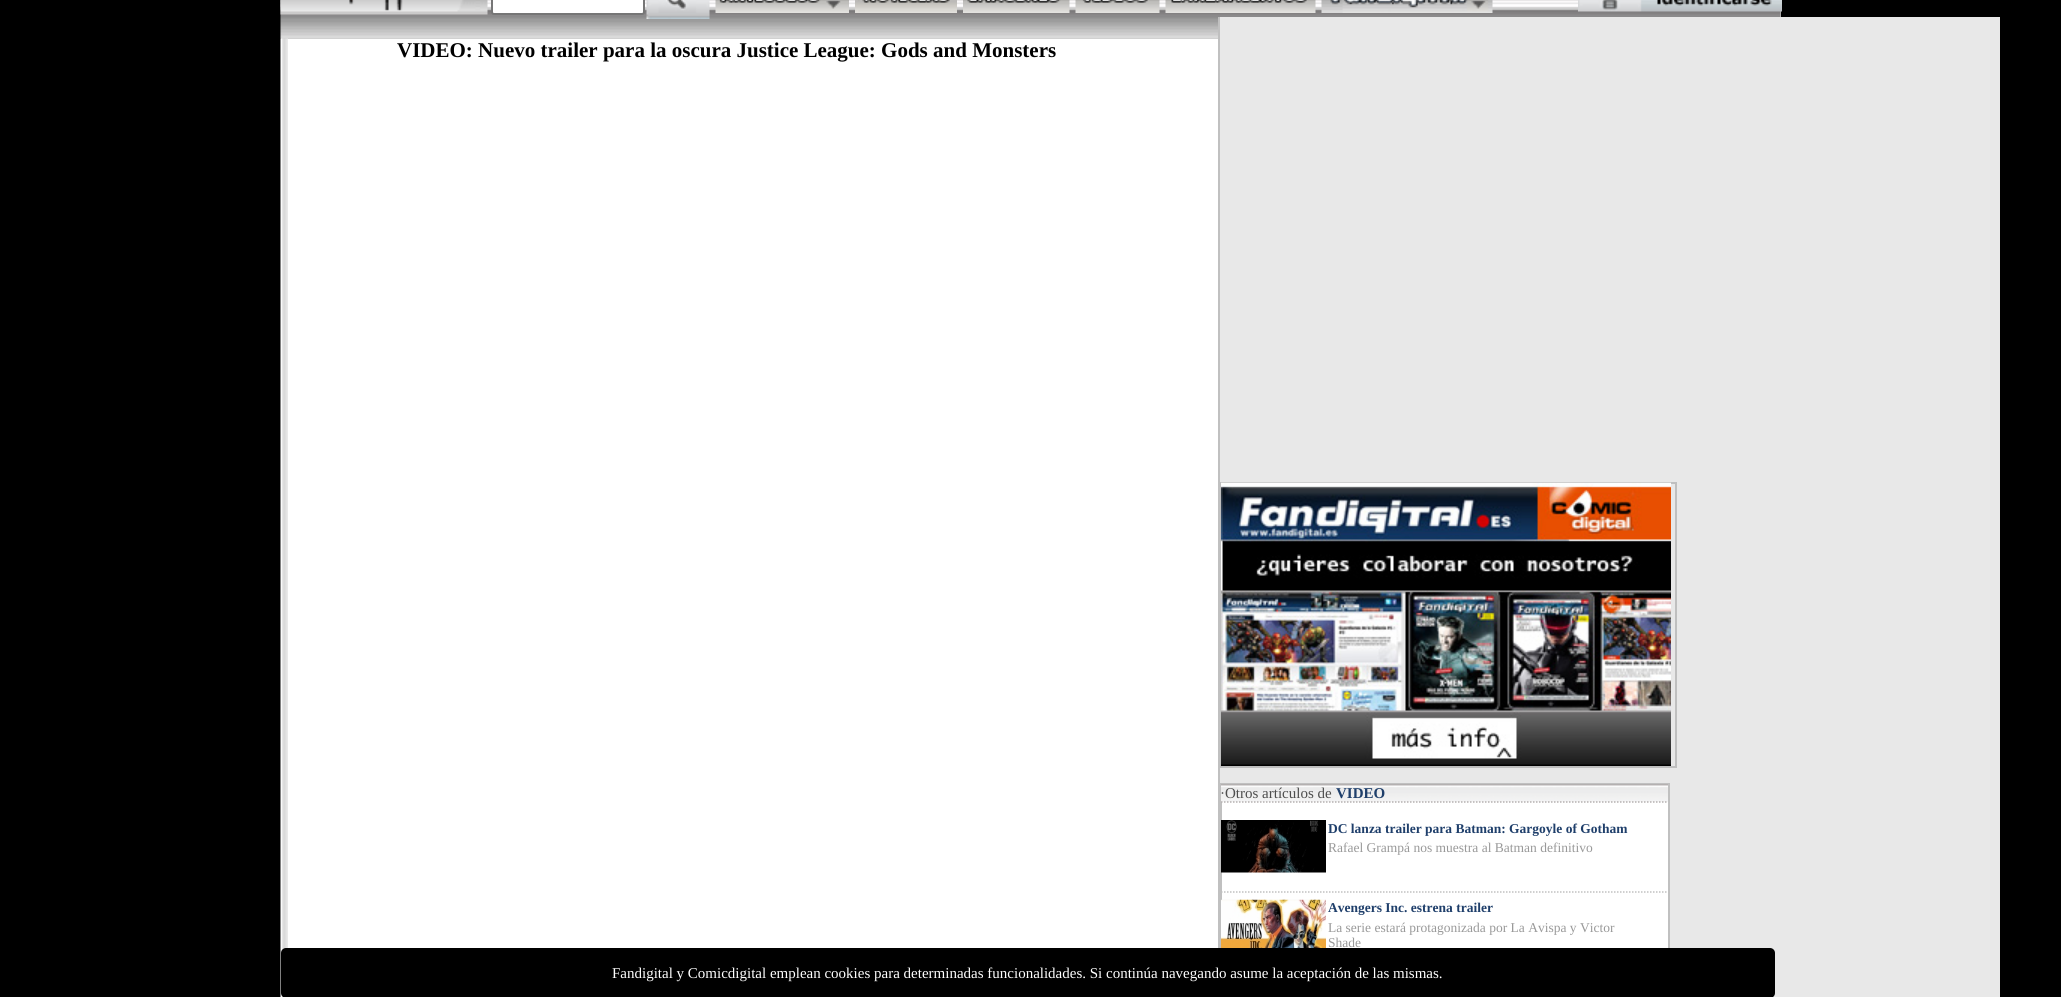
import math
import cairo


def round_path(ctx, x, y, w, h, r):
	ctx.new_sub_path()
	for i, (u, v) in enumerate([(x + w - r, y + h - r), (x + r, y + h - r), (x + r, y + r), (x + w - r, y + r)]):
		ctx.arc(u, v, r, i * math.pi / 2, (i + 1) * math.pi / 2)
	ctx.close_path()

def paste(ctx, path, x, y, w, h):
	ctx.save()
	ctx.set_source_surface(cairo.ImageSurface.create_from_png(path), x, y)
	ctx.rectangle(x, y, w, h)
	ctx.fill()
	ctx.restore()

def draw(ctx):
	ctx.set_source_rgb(0, 0, 0)
	ctx.paint()
	ctx.set_source_rgb(0.788, 0.788, 0.788)
	ctx.rectangle(281, 11, 1500, 28)
	ctx.fill()
	paste(ctx, 'media/2.png', 280, 0, 1501, 39)
	ctx.set_source_rgb(1, 1, 1)
	round_path(ctx, 492, -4, 152, 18, 2)
	ctx.fill_preserve()
	ctx.set_source_rgb(0.463, 0.463, 0.463)
	ctx.stroke()
	paste(ctx, 'media/1.png', 646, 0, 64, 19)
	paste(ctx, 'media/3.png', 280, 0, 208, 15)
	paste(ctx, 'media/4.png', 715, 0, 134, 13)
	paste(ctx, 'media/5.png', 855, 0, 102, 13)
	paste(ctx, 'media/6.png', 963, 0, 107, 13)
	paste(ctx, 'media/7.png', 1075, 0, 85, 13)
	paste(ctx, 'media/8.png', 1165, 0, 151, 13)
	paste(ctx, 'media/9.png', 1321, 0, 172, 13)
	paste(ctx, 'media/10.png', 1578, 0, 204, 12)
	ctx.set_source_rgb(1, 1, 1)
	ctx.rectangle(288, 39, 930, 909)
	ctx.fill()
	paste(ctx, 'media/11.png', 280, 38, 8, 959)
	ctx.select_font_face('Liberation Serif', cairo.FONT_SLANT_NORMAL, cairo.FONT_WEIGHT_BOLD)
	ctx.set_font_size(21)
	ctx.set_source_rgb(0, 0, 0)
	ctx.move_to(397, 57)
	ctx.show_text('VIDEO: Nuevo trailer para la oscura Justice League: Gods and Monsters')
	ctx.set_source_rgb(0.91, 0.91, 0.91)
	ctx.rectangle(1220, 17, 780, 980)
	ctx.fill()
	ctx.set_source_rgb(0.753, 0.753, 0.753)
	ctx.rectangle(1218, 17, 2, 931)
	ctx.fill()
	ctx.rectangle(1221, 483, 455, 284)
	ctx.set_source_rgb(0.749, 0.749, 0.749)
	ctx.stroke()
	paste(ctx, 'media/12.png', 1221, 482, 450, 284)
	ctx.set_source_rgb(1, 1, 1)
	ctx.rectangle(1222, 802, 446, 146)
	ctx.fill()
	ctx.rectangle(1221, 784, 448, 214)
	ctx.set_source_rgb(0.753, 0.753, 0.753)
	ctx.stroke()
	paste(ctx, 'media/13.png', 1221, 784, 447, 18)
	ctx.new_path()
	ctx.move_to(1221, 802)
	ctx.line_to(1668, 802)
	ctx.set_source_rgb(0.706, 0.69, 0.69)
	ctx.set_line_width(1.5)
	ctx.set_dash([1.5, 1.5])
	ctx.stroke()
	ctx.select_font_face('Liberation Serif')
	ctx.set_font_size(15)
	ctx.set_source_rgb(0.302, 0.302, 0.302)
	ctx.move_to(1220, 798)
	ctx.show_text('·Otros artículos de')
	ctx.select_font_face('Liberation Serif', cairo.FONT_SLANT_NORMAL, cairo.FONT_WEIGHT_BOLD)
	ctx.set_source_rgb(0.122, 0.247, 0.42)
	ctx.move_to(1336, 798)
	ctx.show_text('VIDEO')
	ctx.new_path()
	ctx.move_to(1221, 892)
	ctx.line_to(1671, 892)
	ctx.set_source_rgb(0.753, 0.753, 0.753)
	ctx.stroke()
	paste(ctx, 'media/14.png', 1221, 820, 105, 53)
	ctx.set_font_size(13.5)
	ctx.set_source_rgb(0.122, 0.247, 0.42)
	ctx.move_to(1328, 833)
	ctx.show_text('DC lanza trailer para Batman: Gargoyle of Gotham')
	ctx.select_font_face('Liberation Serif')
	ctx.set_source_rgb(0.6, 0.6, 0.6)
	ctx.move_to(1328, 852)
	ctx.show_text('Rafael Grampá nos muestra al Batman definitivo')
	paste(ctx, 'media/15.png', 1221, 899, 105, 49)
	ctx.select_font_face('Liberation Serif', cairo.FONT_SLANT_NORMAL, cairo.FONT_WEIGHT_BOLD)
	ctx.set_source_rgb(0.122, 0.247, 0.42)
	ctx.move_to(1328, 912)
	ctx.show_text('Avengers Inc. estrena trailer')
	ctx.select_font_face('Liberation Serif')
	ctx.set_source_rgb(0.6, 0.6, 0.6)
	ctx.move_to(1328, 932)
	ctx.show_text('La serie estará protagonizada por La Avispa y Victor')
	ctx.move_to(1328, 947)
	ctx.show_text('Shade')
	ctx.set_source_rgb(0, 0, 0)
	round_path(ctx, 281, 948, 1494, 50, 5)
	ctx.fill()
	ctx.set_font_size(15)
	ctx.set_source_rgb(1, 1, 1)
	ctx.move_to(612, 978)
	ctx.show_text('Fandigital y Comicdigital emplean cookies para determinadas funcionalidades. Si continúa navegando asume la aceptación de las mismas.')


surface = cairo.ImageSurface(cairo.FORMAT_RGB24, 2061, 997)
ctx = cairo.Context(surface)
options = cairo.FontOptions()
options.set_hint_metrics(cairo.HINT_METRICS_OFF)
options.set_hint_style(cairo.HINT_STYLE_NONE)
ctx.set_font_options(options)
ctx.set_miter_limit(4)
draw(ctx)
surface.write_to_png('image.png')
